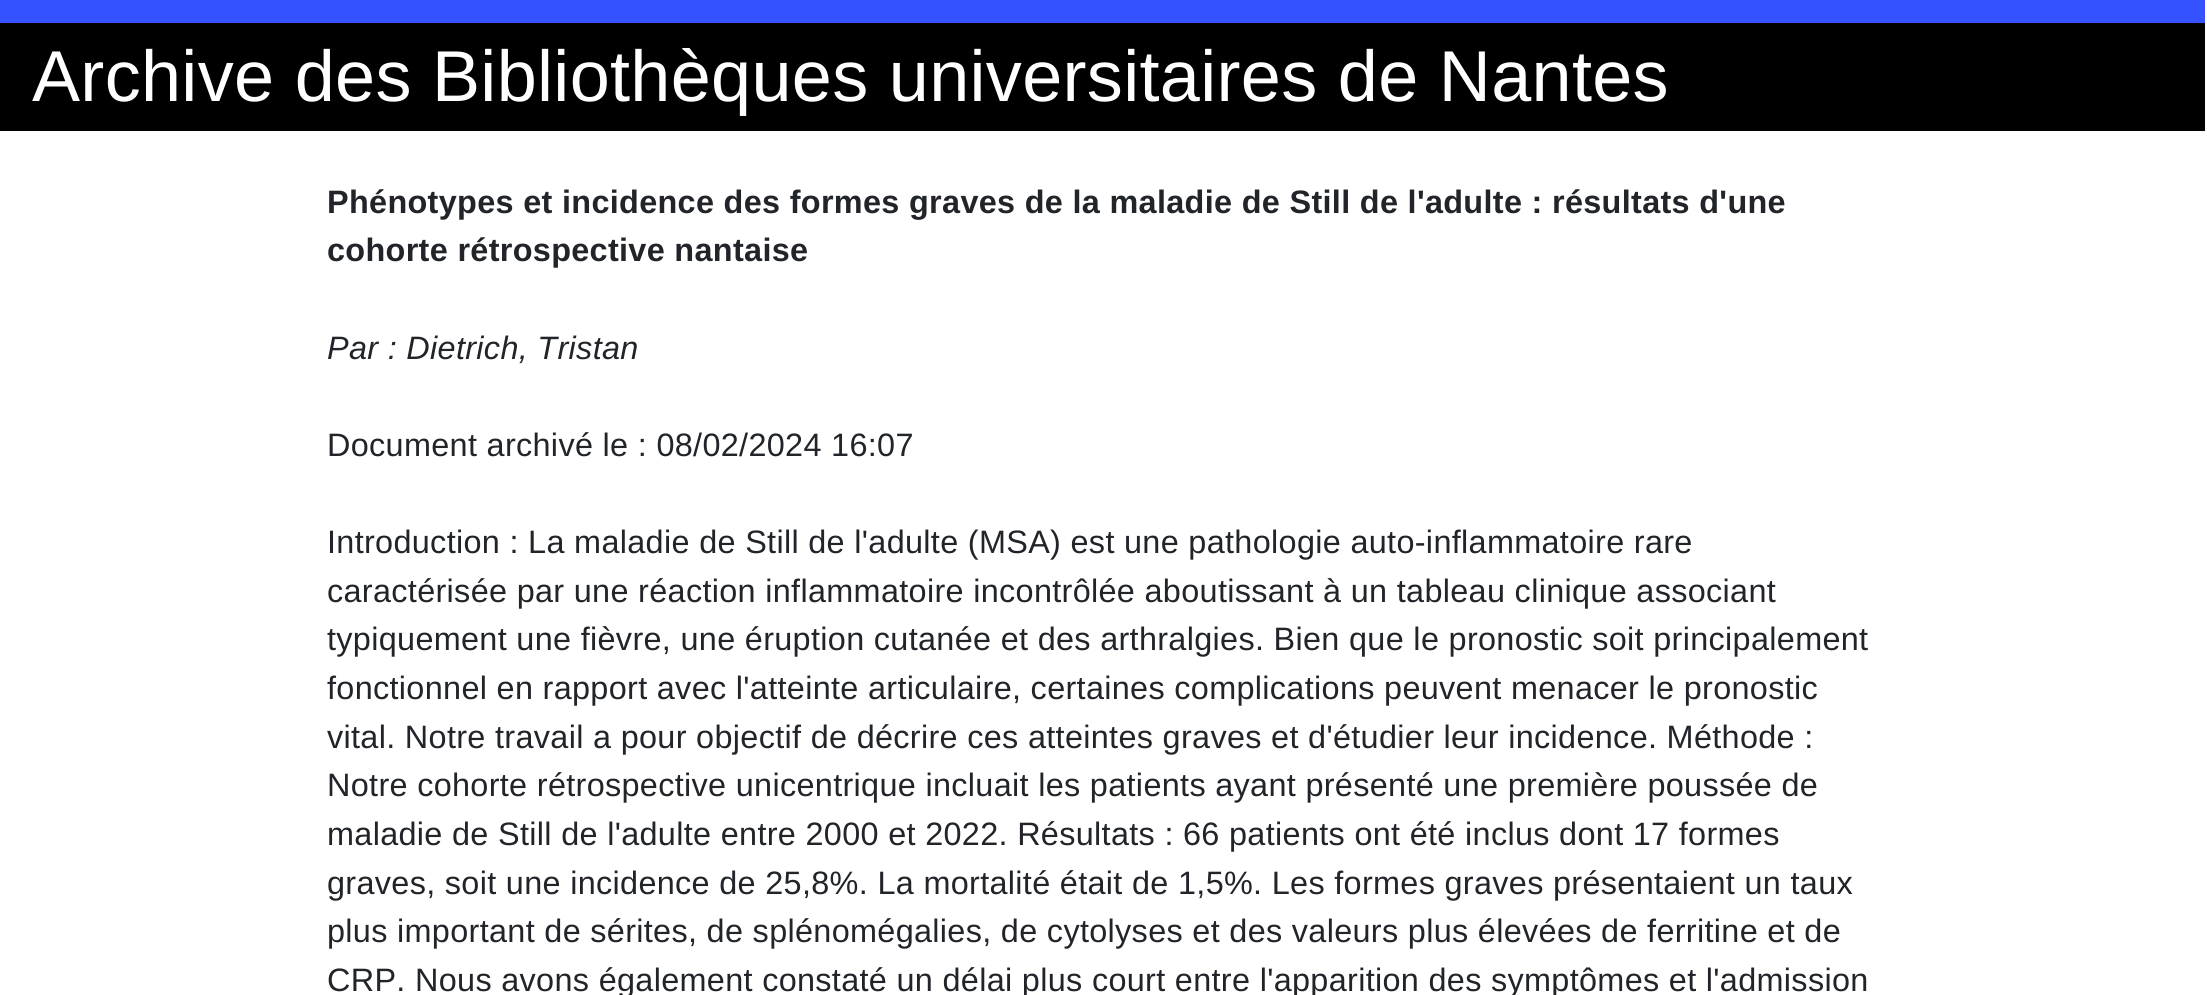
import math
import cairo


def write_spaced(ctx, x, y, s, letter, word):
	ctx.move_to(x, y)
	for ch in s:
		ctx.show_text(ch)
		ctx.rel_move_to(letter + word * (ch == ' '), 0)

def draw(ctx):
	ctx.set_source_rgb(1, 1, 1)
	ctx.paint()
	ctx.set_source_rgb(0.204, 0.322, 1)
	ctx.rectangle(0, 0, 2205, 23)
	ctx.fill()
	ctx.set_source_rgb(0, 0, 0)
	ctx.rectangle(0, 23, 2205, 108)
	ctx.fill()
	ctx.select_font_face('Liberation Sans')
	ctx.set_font_size(72)
	ctx.set_source_rgb(1, 1, 1)
	write_spaced(ctx, 32, 101, 'Archive des Bibliothèques universitaires de Nantes', 0.32, 0)
	ctx.select_font_face('Liberation Sans', cairo.FONT_SLANT_NORMAL, cairo.FONT_WEIGHT_BOLD)
	ctx.set_font_size(32.4)
	ctx.set_source_rgb(0.129, 0.145, 0.161)
	write_spaced(ctx, 327, 213, 'Phénotypes et incidence des formes graves de la maladie de Still de l\'adulte : résultats d\'une', 0.32, 0)
	write_spaced(ctx, 327, 261, 'cohorte rétrospective nantaise', 0.32, 0)
	ctx.select_font_face('Liberation Sans', cairo.FONT_SLANT_ITALIC)
	write_spaced(ctx, 327, 359, 'Par : Dietrich, Tristan', 0.32, 0)
	ctx.select_font_face('Liberation Sans')
	for x, y, s in [
		(327, 456, 'Document archivé le : 08/02/2024 16:07'),
		(327, 553, 'Introduction : La maladie de Still de l\'adulte (MSA) est une pathologie auto-inflammatoire rare'),
		(327, 602, 'caractérisée par une réaction inflammatoire incontrôlée aboutissant à un tableau clinique associant'),
		(327, 650, 'typiquement une fièvre, une éruption cutanée et des arthralgies. Bien que le pronostic soit principalement'),
		(327, 699, 'fonctionnel en rapport avec l\'atteinte articulaire, certaines complications peuvent menacer le pronostic'),
		(327, 748, 'vital. Notre travail a pour objectif de décrire ces atteintes graves et d\'étudier leur incidence. Méthode :'),
		(327, 796, 'Notre cohorte rétrospective unicentrique incluait les patients ayant présenté une première poussée de'),
		(327, 845, 'maladie de Still de l\'adulte entre 2000 et 2022. Résultats : 66 patients ont été inclus dont 17 formes'),
		(327, 894, 'graves, soit une incidence de 25,8%. La mortalité était de 1,5%. Les formes graves présentaient un taux'),
		(327, 942, 'plus important de sérites, de splénomégalies, de cytolyses et des valeurs plus élevées de ferritine et de'),
		(327, 991, 'CRP. Nous avons également constaté un délai plus court entre l\'apparition des symptômes et l\'admission'),
	]:
		write_spaced(ctx, x, y, s, 0.32, 0)


surface = cairo.ImageSurface(cairo.FORMAT_RGB24, 2207, 995)
ctx = cairo.Context(surface)
options = cairo.FontOptions()
options.set_hint_metrics(cairo.HINT_METRICS_OFF)
options.set_hint_style(cairo.HINT_STYLE_NONE)
ctx.set_font_options(options)
ctx.set_miter_limit(4)
draw(ctx)
surface.write_to_png('image.png')
